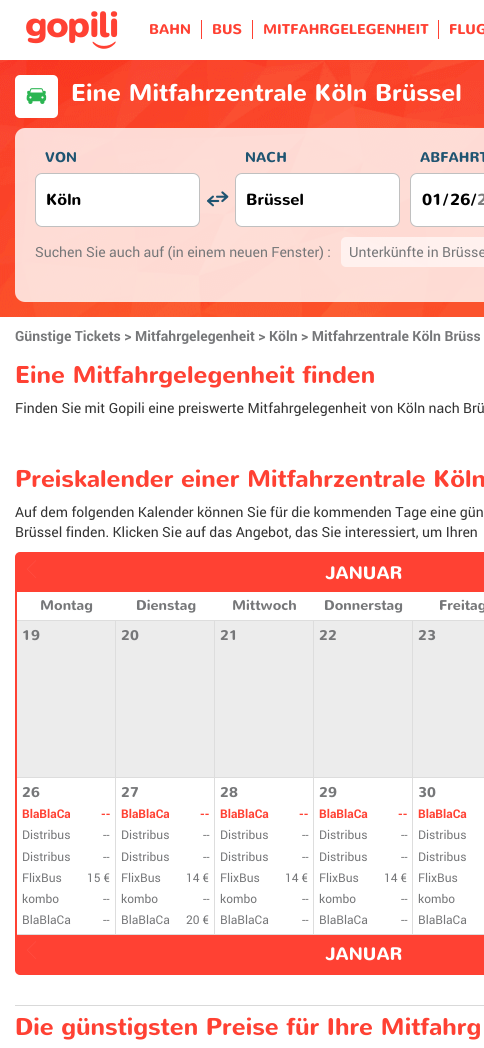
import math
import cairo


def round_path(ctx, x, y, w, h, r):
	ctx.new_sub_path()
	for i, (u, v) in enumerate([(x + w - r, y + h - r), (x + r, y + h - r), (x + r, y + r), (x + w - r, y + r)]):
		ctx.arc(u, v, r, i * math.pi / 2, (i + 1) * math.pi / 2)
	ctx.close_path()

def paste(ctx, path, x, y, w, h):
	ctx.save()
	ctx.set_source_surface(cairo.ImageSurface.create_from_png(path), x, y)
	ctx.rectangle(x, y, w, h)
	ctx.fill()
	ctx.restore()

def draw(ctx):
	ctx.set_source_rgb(1, 1, 1)
	ctx.paint()
	paste(ctx, 'media/1.png', 26, 11, 92, 38)
	ctx.select_font_face('Nunito', cairo.FONT_SLANT_NORMAL, cairo.FONT_WEIGHT_BOLD)
	ctx.set_font_size(14)
	ctx.set_source_rgb(1, 0.255, 0.2)
	ctx.move_to(149, 34)
	ctx.show_text('BAHN')
	ctx.rectangle(201, 20, 1, 19)
	ctx.fill()
	ctx.move_to(212, 34)
	ctx.show_text('BUS')
	ctx.rectangle(252, 20, 1, 19)
	ctx.fill()
	ctx.move_to(263, 34)
	ctx.show_text('MITFAHRGELEGENHEIT')
	ctx.rectangle(438, 20, 1, 19)
	ctx.fill()
	ctx.move_to(449, 34)
	ctx.show_text('FLUG')
	paste(ctx, 'media/2.png', 0, 60, 484, 257)
	ctx.set_source_rgb(1, 1, 1)
	round_path(ctx, 15, 75, 43, 43, 5)
	ctx.fill()
	ctx.select_font_face('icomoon')
	ctx.set_font_size(25)
	ctx.set_source_rgb(0.169, 0.71, 0.322)
	ctx.move_to(25, 107)
	ctx.show_text('·')
	ctx.select_font_face('Nunito', cairo.FONT_SLANT_NORMAL, cairo.FONT_WEIGHT_BOLD)
	ctx.set_font_size(24)
	ctx.set_source_rgb(1, 1, 1)
	ctx.move_to(71, 101)
	ctx.show_text('Eine Mitfahrzentrale Köln Brüssel')
	ctx.set_source_rgba(1, 1, 1, 0.8)
	round_path(ctx, 15, 128, 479, 174, 10)
	ctx.fill()
	ctx.set_font_size(14)
	ctx.set_source_rgb(0.122, 0.329, 0.443)
	ctx.move_to(45, 162)
	ctx.show_text('VON')
	ctx.set_source_rgb(1, 1, 1)
	round_path(ctx, 35.5, 173.5, 164, 53, 6.5)
	ctx.fill_preserve()
	ctx.set_source_rgb(0.753, 0.753, 0.753)
	ctx.set_line_width(1)
	ctx.stroke()
	ctx.set_font_size(16)
	ctx.set_source_rgb(0, 0, 0)
	ctx.move_to(46, 205)
	ctx.show_text('Köln')
	ctx.select_font_face('icomoon')
	ctx.set_font_size(22)
	ctx.set_source_rgb(0.122, 0.329, 0.443)
	ctx.save()
	ctx.translate(208, 191)
	ctx.rotate(90 * math.pi / 180)
	ctx.move_to(0, 0)
	ctx.show_text('}')
	ctx.restore()
	ctx.select_font_face('Nunito', cairo.FONT_SLANT_NORMAL, cairo.FONT_WEIGHT_BOLD)
	ctx.set_font_size(14)
	ctx.move_to(245, 162)
	ctx.show_text('NACH')
	ctx.set_source_rgb(1, 1, 1)
	round_path(ctx, 235.5, 173.5, 164, 53, 6.5)
	ctx.fill_preserve()
	ctx.set_source_rgb(0.753, 0.753, 0.753)
	ctx.stroke()
	ctx.set_font_size(16)
	ctx.set_source_rgb(0, 0, 0)
	ctx.move_to(246, 205)
	ctx.show_text('Brüssel')
	ctx.set_font_size(14)
	ctx.set_source_rgb(0.122, 0.329, 0.443)
	ctx.move_to(420, 162)
	ctx.show_text('ABFAHRT')
	ctx.set_source_rgb(1, 1, 1)
	round_path(ctx, 410.5, 173.5, 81, 53, 6.5)
	ctx.fill_preserve()
	ctx.set_source_rgb(0.753, 0.753, 0.753)
	ctx.stroke()
	ctx.set_font_size(16)
	ctx.set_source_rgb(0, 0, 0)
	for x, y, s in [
		(422, 205, '01'),
		(443, 205, '/'),
		(450, 205, '26'),
		(471, 205, '/'),
	]:
		ctx.move_to(x, y)
		ctx.show_text(s)
	ctx.set_source_rgb(0.502, 0.502, 0.502)
	ctx.move_to(477, 205)
	ctx.show_text('2')
	ctx.select_font_face('roboto')
	ctx.set_font_size(14)
	ctx.set_source_rgb(0.463, 0.467, 0.475)
	ctx.move_to(35, 257)
	ctx.show_text('Suchen Sie auch auf (in einem neuen Fenster) :')
	ctx.set_source_rgba(1, 1, 1, 0.6)
	round_path(ctx, 341, 237, 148, 30, 5)
	ctx.fill()
	ctx.set_source_rgb(0.463, 0.467, 0.475)
	ctx.move_to(349, 257)
	ctx.show_text('Unterkünfte in Brüsse')
	ctx.select_font_face('roboto', cairo.FONT_SLANT_NORMAL, cairo.FONT_WEIGHT_BOLD)
	ctx.move_to(15, 341)
	ctx.show_text('Günstige Tickets > Mitfahrgelegenheit > Köln > Mitfahrzentrale Köln Brüss')
	ctx.select_font_face('Nunito', cairo.FONT_SLANT_NORMAL, cairo.FONT_WEIGHT_BOLD)
	ctx.set_font_size(24)
	ctx.set_source_rgb(1, 0.255, 0.2)
	ctx.move_to(15, 383)
	ctx.show_text('Eine Mitfahrgelegenheit finden')
	ctx.select_font_face('roboto')
	ctx.set_font_size(14)
	ctx.set_source_rgb(0.2, 0.2, 0.2)
	ctx.move_to(15, 413)
	ctx.show_text('Finden Sie mit Gopili eine preiswerte Mitfahrgelegenheit von Köln nach Brü')
	ctx.select_font_face('Nunito', cairo.FONT_SLANT_NORMAL, cairo.FONT_WEIGHT_BOLD)
	ctx.set_font_size(24)
	ctx.set_source_rgb(1, 0.255, 0.2)
	ctx.move_to(15, 487)
	ctx.show_text('Preiskalender einer Mitfahrzentrale Köln')
	ctx.select_font_face('roboto')
	ctx.set_font_size(14)
	ctx.set_source_rgb(0.2, 0.2, 0.2)
	ctx.move_to(15, 517)
	ctx.show_text('Auf dem folgenden Kalender können Sie für die kommenden Tage eine gün')
	ctx.move_to(15, 537)
	ctx.show_text('Brüssel finden. Klicken Sie auf das Angebot, das Sie interessiert, um Ihren')
	round_path(ctx, 16, 553, 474, 421, 4)
	ctx.set_source_rgb(1, 0.255, 0.2)
	ctx.set_line_width(2)
	ctx.stroke()
	ctx.rectangle(17, 554, 467, 38)
	ctx.fill()
	paste(ctx, 'media/3.png', 27, 560, 9, 18)
	ctx.select_font_face('Nunito', cairo.FONT_SLANT_NORMAL, cairo.FONT_WEIGHT_BOLD)
	ctx.set_font_size(18)
	ctx.set_source_rgb(1, 1, 1)
	ctx.move_to(325, 579)
	ctx.show_text('JANUAR')
	ctx.set_source_rgb(0.867, 0.867, 0.867)
	ctx.rectangle(17, 620, 467, 1)
	ctx.fill()
	ctx.set_font_size(14)
	ctx.set_source_rgb(0.463, 0.467, 0.475)
	for x, y, s in [
		(40, 610, 'Montag'),
		(136, 610, 'Dienstag'),
		(232, 610, 'Mittwoch'),
		(324, 610, 'Donnerstag'),
		(439, 610, 'Freitag'),
	]:
		ctx.move_to(x, y)
		ctx.show_text(s)
	ctx.set_source_rgb(0.925, 0.925, 0.925)
	ctx.rectangle(17, 621, 98, 156)
	ctx.fill()
	ctx.set_source_rgb(0.867, 0.867, 0.867)
	ctx.rectangle(115, 621, 1, 314)
	ctx.rectangle(17, 777, 99, 1)
	ctx.fill()
	ctx.set_source_rgb(0.463, 0.467, 0.475)
	ctx.move_to(22, 640)
	ctx.show_text('19')
	ctx.set_source_rgb(0.925, 0.925, 0.925)
	ctx.rectangle(116, 621, 98, 156)
	ctx.fill()
	ctx.set_source_rgb(0.867, 0.867, 0.867)
	ctx.rectangle(214, 621, 1, 314)
	ctx.rectangle(116, 777, 99, 1)
	ctx.fill()
	ctx.set_source_rgb(0.463, 0.467, 0.475)
	ctx.move_to(121, 640)
	ctx.show_text('20')
	ctx.set_source_rgb(0.925, 0.925, 0.925)
	ctx.rectangle(215, 621, 98, 156)
	ctx.fill()
	ctx.set_source_rgb(0.867, 0.867, 0.867)
	ctx.rectangle(313, 621, 1, 314)
	ctx.rectangle(215, 777, 99, 1)
	ctx.fill()
	ctx.set_source_rgb(0.463, 0.467, 0.475)
	ctx.move_to(220, 640)
	ctx.show_text('21')
	ctx.set_source_rgb(0.925, 0.925, 0.925)
	ctx.rectangle(314, 621, 98, 156)
	ctx.fill()
	ctx.set_source_rgb(0.867, 0.867, 0.867)
	ctx.rectangle(412, 621, 1, 314)
	ctx.rectangle(314, 777, 170, 1)
	ctx.fill()
	ctx.set_source_rgb(0.463, 0.467, 0.475)
	ctx.move_to(319, 640)
	ctx.show_text('22')
	ctx.set_source_rgb(0.925, 0.925, 0.925)
	ctx.rectangle(413, 621, 71, 156)
	ctx.fill()
	ctx.set_source_rgb(0.463, 0.467, 0.475)
	ctx.move_to(418, 640)
	ctx.show_text('23')
	ctx.set_source_rgb(0.867, 0.867, 0.867)
	ctx.rectangle(17, 934, 467, 1)
	ctx.fill()
	ctx.set_source_rgb(0.463, 0.467, 0.475)
	ctx.move_to(22, 797)
	ctx.show_text('26')
	ctx.save()
	ctx.rectangle(22, 805, 48, 17)
	ctx.clip()
	ctx.select_font_face('roboto', cairo.FONT_SLANT_NORMAL, cairo.FONT_WEIGHT_BOLD)
	ctx.set_font_size(12)
	ctx.set_source_rgb(1, 0.255, 0.2)
	ctx.move_to(22, 818)
	ctx.show_text('BlaBlaCa')
	ctx.restore()
	ctx.select_font_face('roboto', cairo.FONT_SLANT_NORMAL, cairo.FONT_WEIGHT_BOLD)
	ctx.set_font_size(12)
	ctx.set_source_rgb(1, 0.255, 0.2)
	ctx.move_to(101, 818)
	ctx.show_text('--')
	ctx.select_font_face('roboto')
	ctx.set_source_rgb(0.463, 0.467, 0.475)
	for x, y, s in [
		(22, 839, 'Distribus'),
		(103, 839, '--'),
		(22, 861, 'Distribus'),
		(103, 861, '--'),
		(22, 882, 'FlixBus'),
		(87, 882, '15 €'),
		(22, 903, 'kombo'),
		(103, 903, '--'),
		(22, 924, 'BlaBlaCa'),
		(103, 924, '--'),
	]:
		ctx.move_to(x, y)
		ctx.show_text(s)
	ctx.select_font_face('Nunito', cairo.FONT_SLANT_NORMAL, cairo.FONT_WEIGHT_BOLD)
	ctx.set_font_size(14)
	ctx.move_to(121, 797)
	ctx.show_text('27')
	ctx.save()
	ctx.rectangle(121, 805, 48, 17)
	ctx.clip()
	ctx.select_font_face('roboto', cairo.FONT_SLANT_NORMAL, cairo.FONT_WEIGHT_BOLD)
	ctx.set_font_size(12)
	ctx.set_source_rgb(1, 0.255, 0.2)
	ctx.move_to(121, 818)
	ctx.show_text('BlaBlaCa')
	ctx.restore()
	ctx.select_font_face('roboto', cairo.FONT_SLANT_NORMAL, cairo.FONT_WEIGHT_BOLD)
	ctx.set_font_size(12)
	ctx.set_source_rgb(1, 0.255, 0.2)
	ctx.move_to(200, 818)
	ctx.show_text('--')
	ctx.select_font_face('roboto')
	ctx.set_source_rgb(0.463, 0.467, 0.475)
	for x, y, s in [
		(121, 839, 'Distribus'),
		(203, 839, '--'),
		(121, 861, 'Distribus'),
		(203, 861, '--'),
		(121, 882, 'FlixBus'),
		(186, 882, '14 €'),
		(121, 903, 'kombo'),
		(203, 903, '--'),
		(121, 924, 'BlaBlaCa'),
		(186, 924, '20 €'),
	]:
		ctx.move_to(x, y)
		ctx.show_text(s)
	ctx.select_font_face('Nunito', cairo.FONT_SLANT_NORMAL, cairo.FONT_WEIGHT_BOLD)
	ctx.set_font_size(14)
	ctx.move_to(220, 797)
	ctx.show_text('28')
	ctx.select_font_face('roboto', cairo.FONT_SLANT_NORMAL, cairo.FONT_WEIGHT_BOLD)
	ctx.set_font_size(12)
	ctx.set_source_rgb(1, 0.255, 0.2)
	ctx.move_to(220, 818)
	ctx.show_text('BlaBlaCa')
	ctx.move_to(299, 818)
	ctx.show_text('--')
	ctx.select_font_face('roboto')
	ctx.set_source_rgb(0.463, 0.467, 0.475)
	for x, y, s in [
		(220, 839, 'Distribus'),
		(302, 839, '--'),
		(220, 861, 'Distribus'),
		(302, 861, '--'),
		(220, 882, 'FlixBus'),
		(285, 882, '14 €'),
		(220, 903, 'kombo'),
		(302, 903, '--'),
		(220, 924, 'BlaBlaCa'),
		(302, 924, '--'),
	]:
		ctx.move_to(x, y)
		ctx.show_text(s)
	ctx.select_font_face('Nunito', cairo.FONT_SLANT_NORMAL, cairo.FONT_WEIGHT_BOLD)
	ctx.set_font_size(14)
	ctx.move_to(319, 797)
	ctx.show_text('29')
	ctx.select_font_face('roboto', cairo.FONT_SLANT_NORMAL, cairo.FONT_WEIGHT_BOLD)
	ctx.set_font_size(12)
	ctx.set_source_rgb(1, 0.255, 0.2)
	ctx.move_to(319, 818)
	ctx.show_text('BlaBlaCa')
	ctx.move_to(398, 818)
	ctx.show_text('--')
	ctx.select_font_face('roboto')
	ctx.set_source_rgb(0.463, 0.467, 0.475)
	for x, y, s in [
		(319, 839, 'Distribus'),
		(401, 839, '--'),
		(319, 861, 'Distribus'),
		(401, 861, '--'),
		(319, 882, 'FlixBus'),
		(384, 882, '14 €'),
		(319, 903, 'kombo'),
		(401, 903, '--'),
		(319, 924, 'BlaBlaCa'),
		(401, 924, '--'),
	]:
		ctx.move_to(x, y)
		ctx.show_text(s)
	ctx.select_font_face('Nunito', cairo.FONT_SLANT_NORMAL, cairo.FONT_WEIGHT_BOLD)
	ctx.set_font_size(14)
	ctx.move_to(418, 797)
	ctx.show_text('30')
	ctx.select_font_face('roboto', cairo.FONT_SLANT_NORMAL, cairo.FONT_WEIGHT_BOLD)
	ctx.set_font_size(12)
	ctx.set_source_rgb(1, 0.255, 0.2)
	ctx.move_to(418, 818)
	ctx.show_text('BlaBlaCa')
	ctx.select_font_face('roboto')
	ctx.set_source_rgb(0.463, 0.467, 0.475)
	for x, y, s in [
		(418, 839, 'Distribus'),
		(418, 861, 'Distribus'),
		(418, 882, 'FlixBus'),
		(418, 903, 'kombo'),
		(418, 924, 'BlaBlaCa'),
	]:
		ctx.move_to(x, y)
		ctx.show_text(s)
	ctx.set_source_rgb(1, 0.255, 0.2)
	ctx.rectangle(17, 935, 467, 38)
	ctx.fill()
	paste(ctx, 'media/3.png', 27, 941, 9, 18)
	ctx.select_font_face('Nunito', cairo.FONT_SLANT_NORMAL, cairo.FONT_WEIGHT_BOLD)
	ctx.set_font_size(18)
	ctx.set_source_rgb(1, 1, 1)
	ctx.move_to(325, 960)
	ctx.show_text('JANUAR')
	ctx.set_source_rgb(0.851, 0.851, 0.851)
	ctx.rectangle(15, 1005, 469, 1)
	ctx.fill()
	ctx.set_font_size(24)
	ctx.set_source_rgb(1, 0.255, 0.2)
	ctx.move_to(15, 1035)
	ctx.show_text('Die günstigsten Preise für Ihre Mitfahrg')


surface = cairo.ImageSurface(cairo.FORMAT_RGB24, 484, 1048)
ctx = cairo.Context(surface)
options = cairo.FontOptions()
options.set_hint_metrics(cairo.HINT_METRICS_OFF)
options.set_hint_style(cairo.HINT_STYLE_NONE)
ctx.set_font_options(options)
ctx.set_miter_limit(4)
draw(ctx)
surface.write_to_png('image.png')
